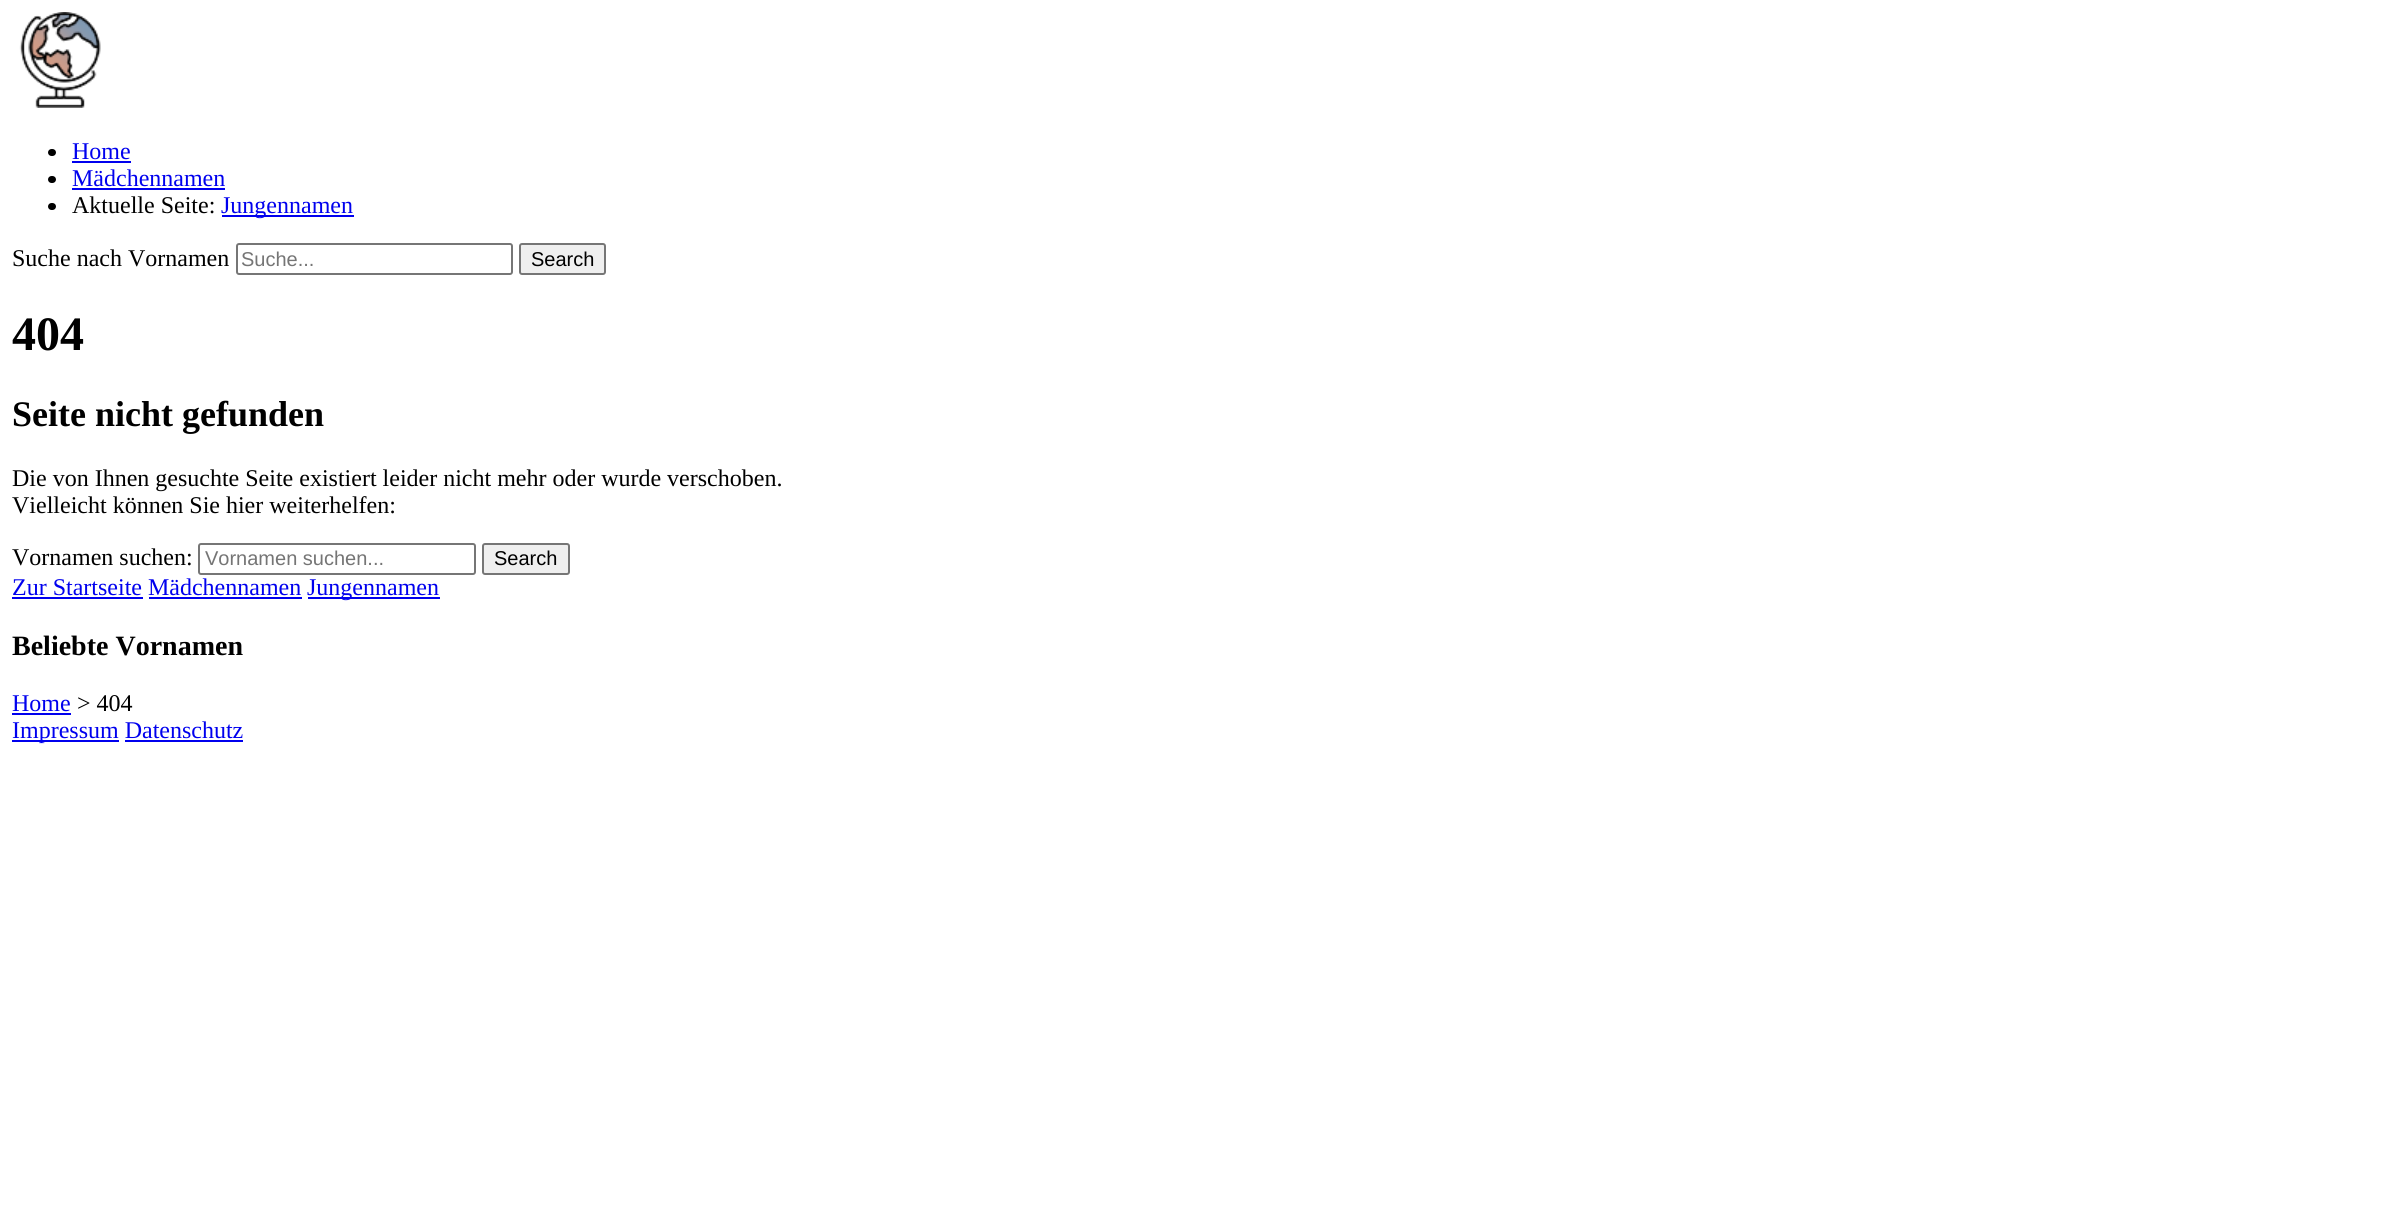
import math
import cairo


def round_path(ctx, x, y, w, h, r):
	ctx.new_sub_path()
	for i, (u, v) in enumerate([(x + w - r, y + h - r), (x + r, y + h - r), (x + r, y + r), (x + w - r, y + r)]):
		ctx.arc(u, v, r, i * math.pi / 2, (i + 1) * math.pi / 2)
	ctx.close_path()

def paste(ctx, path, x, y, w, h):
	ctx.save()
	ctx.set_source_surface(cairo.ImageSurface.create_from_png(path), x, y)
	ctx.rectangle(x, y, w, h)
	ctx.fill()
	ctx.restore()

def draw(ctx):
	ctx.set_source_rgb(1, 1, 1)
	ctx.paint()
	paste(ctx, 'media/1.png', 19, 12, 82, 96)
	ctx.set_source_rgb(0, 0, 0)
	round_path(ctx, 48, 149, 8, 7, 3.5)
	ctx.fill()
	ctx.select_font_face('Liberation Serif')
	ctx.set_font_size(24)
	ctx.set_source_rgb(0, 0, 0.933)
	ctx.move_to(72, 159)
	ctx.show_text('Home')
	ctx.rectangle(72, 161, 59, 2)
	ctx.fill()
	ctx.set_source_rgb(0, 0, 0)
	round_path(ctx, 48, 176, 8, 7, 3.5)
	ctx.fill()
	ctx.set_source_rgb(0, 0, 0.933)
	ctx.move_to(72, 186)
	ctx.show_text('Mädchennamen')
	ctx.rectangle(72, 188, 153, 2)
	ctx.fill()
	ctx.set_source_rgb(0, 0, 0)
	round_path(ctx, 48, 203, 8, 7, 3.5)
	ctx.fill()
	ctx.move_to(72, 213)
	ctx.show_text('Aktuelle Seite:')
	ctx.set_source_rgb(0, 0, 0.933)
	ctx.rectangle(222, 215, 132, 2)
	ctx.fill()
	ctx.move_to(221, 213)
	ctx.show_text('Jungennamen')
	ctx.set_source_rgb(0, 0, 0)
	ctx.move_to(12, 266)
	ctx.show_text('Suche nach Vornamen')
	round_path(ctx, 237, 244, 275, 30, 2)
	ctx.set_source_rgb(0.463, 0.463, 0.463)
	ctx.stroke()
	ctx.select_font_face('Liberation Sans')
	ctx.set_font_size(20)
	ctx.set_source_rgb(0.459, 0.459, 0.459)
	ctx.move_to(241, 266)
	ctx.show_text('Suche...')
	ctx.set_source_rgb(0.937, 0.937, 0.937)
	round_path(ctx, 520, 244, 85, 30, 2)
	ctx.fill_preserve()
	ctx.set_source_rgb(0.463, 0.463, 0.463)
	ctx.stroke()
	ctx.set_source_rgb(0, 0, 0)
	ctx.move_to(531, 266)
	ctx.show_text('Search')
	ctx.select_font_face('Liberation Serif', cairo.FONT_SLANT_NORMAL, cairo.FONT_WEIGHT_BOLD)
	ctx.set_font_size(48)
	ctx.move_to(12, 350)
	ctx.show_text('404')
	ctx.set_font_size(36)
	ctx.move_to(12, 426)
	ctx.show_text('Seite nicht gefunden')
	ctx.select_font_face('Liberation Serif')
	ctx.set_font_size(24)
	for x, y, s in [
		(12, 486, 'Die von Ihnen gesuchte Seite existiert leider nicht mehr oder wurde verschoben.'),
		(12, 513, 'Vielleicht können Sie hier weiterhelfen:'),
		(12, 565, 'Vornamen suchen:'),
	]:
		ctx.move_to(x, y)
		ctx.show_text(s)
	round_path(ctx, 199, 544, 276, 30, 2)
	ctx.set_source_rgb(0.463, 0.463, 0.463)
	ctx.stroke()
	ctx.select_font_face('Liberation Sans')
	ctx.set_font_size(20)
	ctx.set_source_rgb(0.459, 0.459, 0.459)
	ctx.move_to(205, 565)
	ctx.show_text('Vornamen suchen...')
	ctx.set_source_rgb(0.937, 0.937, 0.937)
	round_path(ctx, 483, 544, 86, 30, 2)
	ctx.fill_preserve()
	ctx.set_source_rgb(0.463, 0.463, 0.463)
	ctx.stroke()
	ctx.set_source_rgb(0, 0, 0)
	ctx.move_to(494, 565)
	ctx.show_text('Search')
	ctx.select_font_face('Liberation Serif')
	ctx.set_font_size(24)
	ctx.set_source_rgb(0, 0, 0.933)
	ctx.move_to(12, 595)
	ctx.show_text('Zur Startseite Mädchennamen')
	ctx.rectangle(12, 597, 131, 2)
	ctx.fill()
	ctx.rectangle(308, 597, 132, 2)
	ctx.fill()
	ctx.move_to(307, 595)
	ctx.show_text('Jungennamen')
	ctx.rectangle(149, 597, 153, 2)
	ctx.fill()
	ctx.select_font_face('Liberation Serif', cairo.FONT_SLANT_NORMAL, cairo.FONT_WEIGHT_BOLD)
	ctx.set_font_size(28)
	ctx.set_source_rgb(0, 0, 0)
	ctx.move_to(12, 655)
	ctx.show_text('Beliebte Vornamen')
	ctx.select_font_face('Liberation Serif')
	ctx.set_font_size(24)
	ctx.set_source_rgb(0, 0, 0.933)
	ctx.move_to(12, 711)
	ctx.show_text('Home')
	ctx.rectangle(12, 713, 59, 2)
	ctx.fill()
	ctx.set_source_rgb(0, 0, 0)
	ctx.move_to(77, 711)
	ctx.show_text('> 404')
	ctx.set_source_rgb(0, 0, 0.933)
	ctx.rectangle(12, 740, 107, 2)
	ctx.fill()
	ctx.move_to(12, 738)
	ctx.show_text('Impressum Datenschutz')
	ctx.rectangle(125, 740, 118, 2)
	ctx.fill()


surface = cairo.ImageSurface(cairo.FORMAT_RGB24, 2408, 1206)
ctx = cairo.Context(surface)
options = cairo.FontOptions()
options.set_hint_metrics(cairo.HINT_METRICS_OFF)
options.set_hint_style(cairo.HINT_STYLE_NONE)
ctx.set_font_options(options)
ctx.set_miter_limit(4)
draw(ctx)
surface.write_to_png('image.png')
